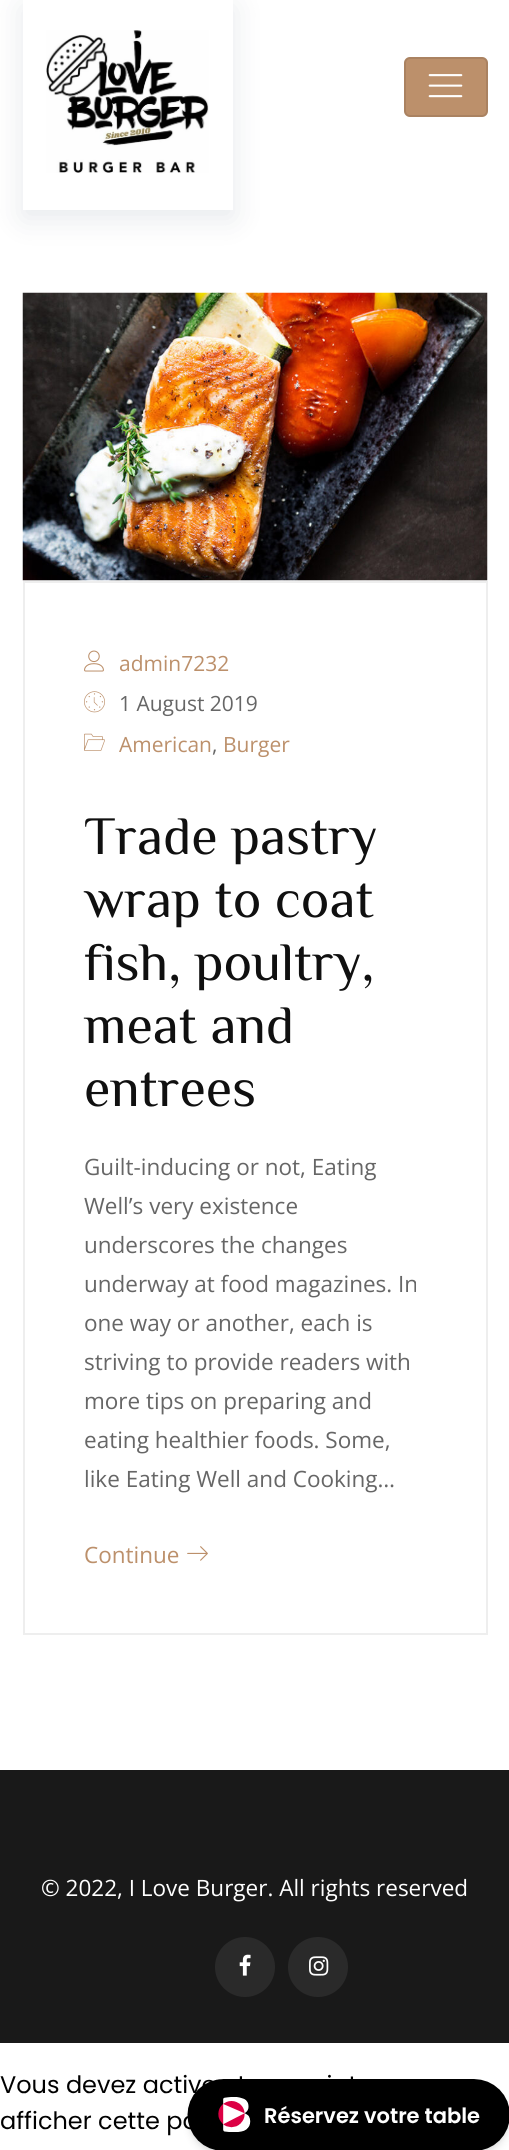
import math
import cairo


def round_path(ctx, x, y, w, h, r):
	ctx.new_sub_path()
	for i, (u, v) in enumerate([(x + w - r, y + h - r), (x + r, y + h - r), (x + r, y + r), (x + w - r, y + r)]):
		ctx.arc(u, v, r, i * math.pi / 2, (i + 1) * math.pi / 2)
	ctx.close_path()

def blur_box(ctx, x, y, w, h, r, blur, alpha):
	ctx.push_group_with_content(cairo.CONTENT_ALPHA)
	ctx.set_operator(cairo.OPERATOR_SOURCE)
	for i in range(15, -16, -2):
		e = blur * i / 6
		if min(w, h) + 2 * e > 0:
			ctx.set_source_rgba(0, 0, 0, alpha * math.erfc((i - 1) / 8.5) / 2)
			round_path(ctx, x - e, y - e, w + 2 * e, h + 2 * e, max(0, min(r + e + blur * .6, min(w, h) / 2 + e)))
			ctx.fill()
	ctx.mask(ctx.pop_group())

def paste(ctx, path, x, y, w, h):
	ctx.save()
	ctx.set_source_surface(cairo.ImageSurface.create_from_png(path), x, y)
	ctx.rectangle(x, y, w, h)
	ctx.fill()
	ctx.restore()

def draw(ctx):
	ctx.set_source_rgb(1, 1, 1)
	ctx.paint()
	ctx.set_source_rgb(0.027, 0.098, 0.235)
	blur_box(ctx, 23, 8, 210, 210, 0, 15, 0.1)
	ctx.set_source_rgb(1, 1, 1)
	ctx.rectangle(23, 0, 210, 210)
	ctx.fill()
	paste(ctx, 'media/1.png', 46, 30, 163, 143)
	ctx.set_source_rgb(0.737, 0.565, 0.42)
	round_path(ctx, 404, 57, 84, 60, 6)
	ctx.fill()
	round_path(ctx, 405, 58, 82, 58, 5)
	ctx.set_source_rgba(0, 0, 0, 0.1)
	ctx.stroke()
	paste(ctx, 'media/2.png', 428, 74, 35, 24)
	paste(ctx, 'media/3.png', 22, 292, 466, 289)
	ctx.rectangle(24, 582, 463, 1052)
	ctx.set_source_rgb(0.933, 0.933, 0.933)
	ctx.stroke()
	paste(ctx, 'media/4.png', 84, 650, 20, 22)
	ctx.select_font_face('Open Sans')
	ctx.set_font_size(21)
	ctx.set_source_rgb(0.737, 0.565, 0.42)
	ctx.move_to(119, 671)
	ctx.show_text('admin7232')
	paste(ctx, 'media/5.png', 84, 691, 21, 22)
	ctx.set_source_rgb(0.4, 0.4, 0.4)
	ctx.move_to(119, 711)
	ctx.show_text('1 August 2019')
	paste(ctx, 'media/6.png', 84, 733, 21, 18)
	ctx.set_source_rgb(0.737, 0.565, 0.42)
	ctx.move_to(119, 752)
	ctx.show_text('American')
	ctx.set_source_rgb(0.4, 0.4, 0.4)
	ctx.move_to(212, 752)
	ctx.show_text(',')
	ctx.set_source_rgb(0.737, 0.565, 0.42)
	ctx.move_to(223, 752)
	ctx.show_text('Burger')
	ctx.select_font_face('ZCOOL XiaoWei')
	ctx.set_font_size(54)
	ctx.set_source_rgb(0.063, 0.063, 0.063)
	for x, y, s in [
		(84, 854, 'Trade pastry'),
		(84, 917, 'wrap to coat'),
		(84, 980, 'fish, poultry,'),
		(84, 1043, 'meat and'),
		(84, 1106, 'entrees'),
	]:
		ctx.move_to(x, y)
		ctx.show_text(s)
	ctx.select_font_face('Open Sans')
	ctx.set_font_size(22.5)
	ctx.set_source_rgb(0.4, 0.4, 0.4)
	for x, y, s in [
		(84, 1175, 'Guilt-inducing or not, Eating'),
		(84, 1214, 'Well’s very existence'),
		(84, 1253, 'underscores the changes'),
		(84, 1292, 'underway at food magazines. In'),
		(84, 1331, 'one way or another, each is'),
		(84, 1370, 'striving to provide readers with'),
		(84, 1409, 'more tips on preparing and'),
		(84, 1448, 'eating healthier foods. Some,'),
		(84, 1487, 'like Eating Well and Cooking…'),
	]:
		ctx.move_to(x, y)
		ctx.show_text(s)
	ctx.set_source_rgb(0.737, 0.565, 0.42)
	ctx.move_to(84, 1563)
	ctx.show_text('Continue')
	paste(ctx, 'media/7.png', 187, 1546, 21, 15)
	ctx.set_source_rgb(0.098, 0.098, 0.098)
	ctx.rectangle(0, 1770, 509, 273)
	ctx.fill()
	ctx.set_source_rgb(1, 1, 1)
	ctx.move_to(41, 1896)
	ctx.show_text('© 2022, I Love Burger. All rights reserved')
	ctx.set_source_rgb(0.165, 0.165, 0.165)
	ctx.new_path()
	ctx.arc(245, 1967, 30, 0, 2 * math.pi)
	ctx.fill()
	paste(ctx, 'media/8.png', 239, 1954, 12, 22)
	ctx.arc(318, 1967, 30, 0, 2 * math.pi)
	ctx.fill()
	paste(ctx, 'media/9.png', 309, 1956, 20, 20)
	paste(ctx, 'media/10.png', 0, 2074, 509, 76)


surface = cairo.ImageSurface(cairo.FORMAT_RGB24, 509, 2150)
ctx = cairo.Context(surface)
options = cairo.FontOptions()
options.set_hint_metrics(cairo.HINT_METRICS_OFF)
options.set_hint_style(cairo.HINT_STYLE_NONE)
ctx.set_font_options(options)
ctx.set_miter_limit(4)
draw(ctx)
surface.write_to_png('image.png')
